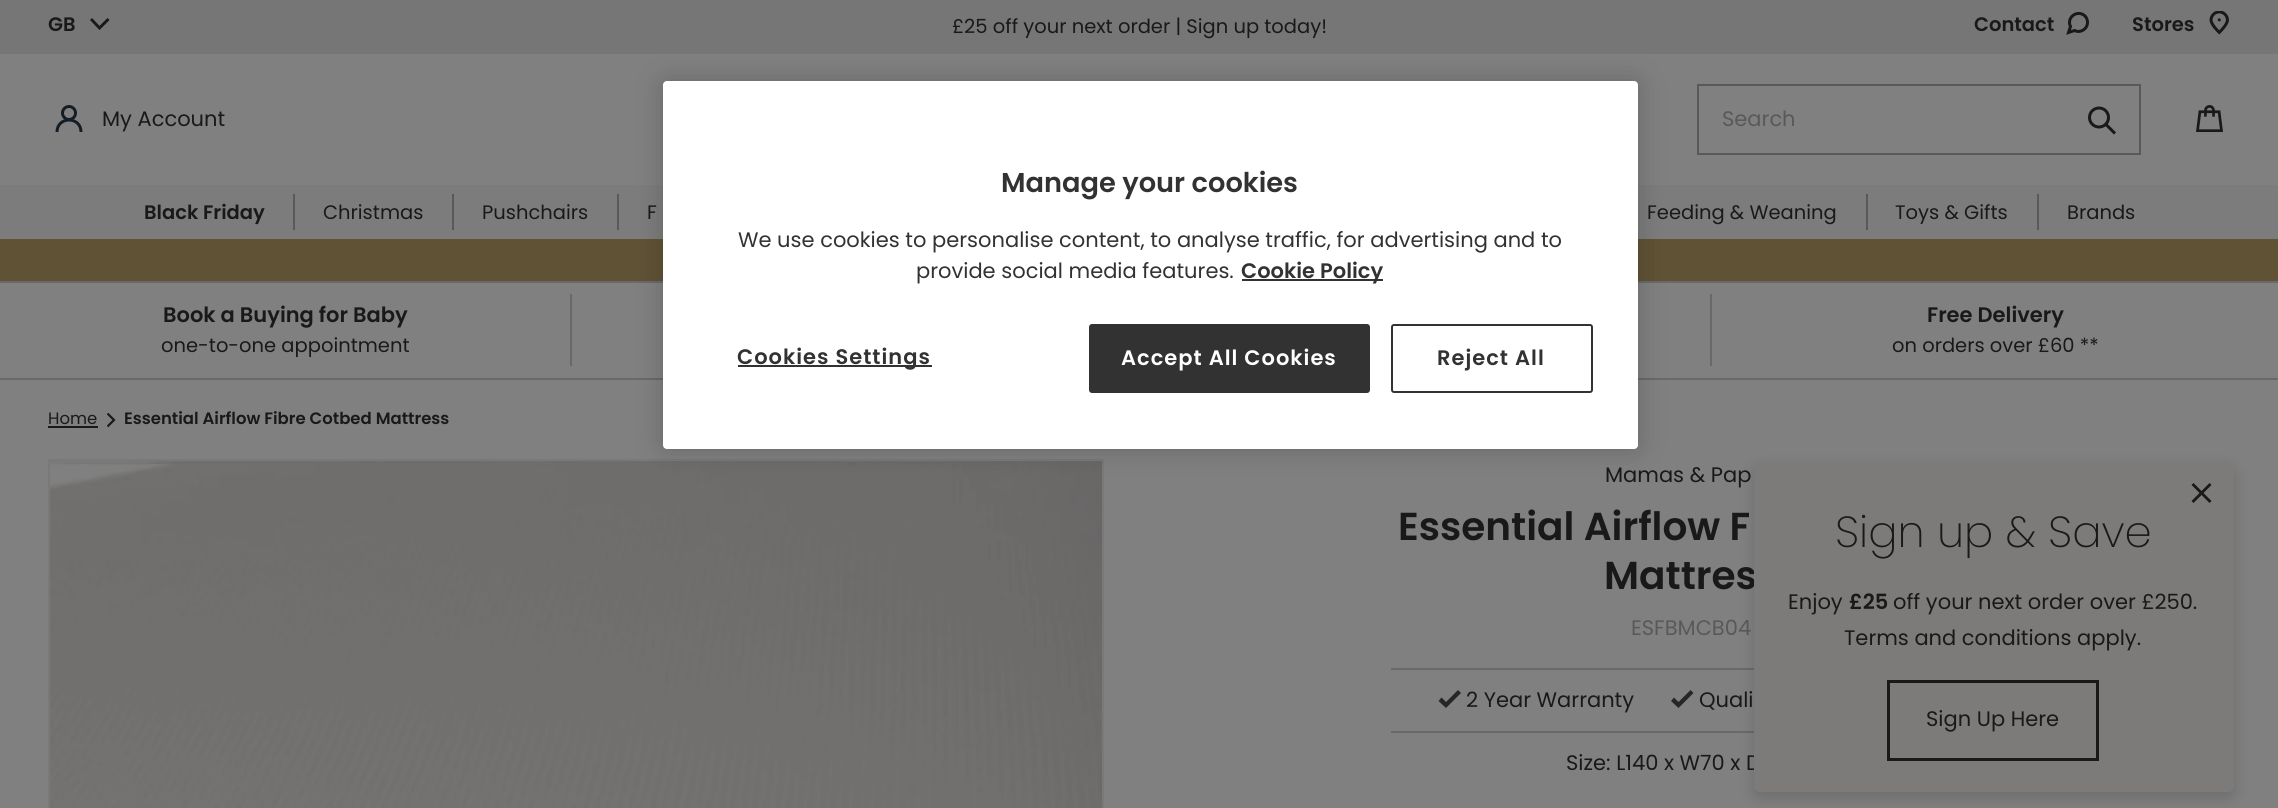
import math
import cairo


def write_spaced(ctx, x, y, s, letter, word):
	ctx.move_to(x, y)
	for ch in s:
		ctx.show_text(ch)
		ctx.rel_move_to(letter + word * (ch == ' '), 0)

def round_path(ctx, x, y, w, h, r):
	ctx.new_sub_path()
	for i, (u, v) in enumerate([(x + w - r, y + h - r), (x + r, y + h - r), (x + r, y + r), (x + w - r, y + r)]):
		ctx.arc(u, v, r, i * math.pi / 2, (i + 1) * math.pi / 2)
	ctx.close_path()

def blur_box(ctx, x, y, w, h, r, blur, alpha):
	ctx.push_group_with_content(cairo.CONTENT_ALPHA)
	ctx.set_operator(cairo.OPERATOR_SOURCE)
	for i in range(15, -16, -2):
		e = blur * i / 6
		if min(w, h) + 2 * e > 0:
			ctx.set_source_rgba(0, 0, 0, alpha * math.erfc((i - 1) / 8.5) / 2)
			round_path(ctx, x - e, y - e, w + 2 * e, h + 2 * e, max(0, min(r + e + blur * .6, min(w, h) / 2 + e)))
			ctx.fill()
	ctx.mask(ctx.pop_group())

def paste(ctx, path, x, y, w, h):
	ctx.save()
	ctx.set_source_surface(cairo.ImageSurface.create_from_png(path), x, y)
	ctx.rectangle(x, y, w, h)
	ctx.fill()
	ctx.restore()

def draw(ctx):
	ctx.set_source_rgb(0.502, 0.502, 0.502)
	ctx.paint()
	ctx.set_source_rgb(0.463, 0.463, 0.463)
	ctx.rectangle(0, 0, 2278, 54)
	ctx.fill()
	ctx.new_path()
	ctx.move_to(91, 19)
	ctx.line_to(99.5, 28)
	ctx.line_to(108.5, 19)
	ctx.set_source_rgb(0.098, 0.098, 0.098)
	ctx.set_line_width(2.9)
	ctx.stroke()
	ctx.select_font_face('Poppins SemiBold')
	ctx.set_font_size(19.5)
	ctx.move_to(48, 31)
	ctx.show_text('GB')
	ctx.select_font_face('Poppins')
	ctx.move_to(952, 33)
	ctx.show_text('£25 off your next order | Sign up today!')
	ctx.select_font_face('Poppins SemiBold')
	ctx.move_to(1974, 31)
	ctx.show_text('Contact')
	ctx.new_path()
	ctx.move_to(2087.5, 22.5)
	ctx.curve_to(2087.5, 29, 2080.5, 33.5, 2074.5, 30.5)
	ctx.line_to(2068.5, 32.5)
	ctx.line_to(2070.5, 26.5)
	ctx.curve_to(2066, 17.5, 2077.5, 9, 2085, 16)
	ctx.curve_to(2086.5, 17.5, 2087.5, 20, 2087.5, 22)
	ctx.close_path()
	ctx.set_line_width(3)
	ctx.stroke()
	ctx.move_to(2132, 31)
	ctx.show_text('Stores')
	paste(ctx, 'media/1.png', 2209, 11, 20, 24)
	ctx.new_path()
	ctx.move_to(81, 132)
	ctx.curve_to(81, 116, 57, 116, 57, 132)
	ctx.set_source_rgb(0.071, 0.114, 0.153)
	ctx.set_line_join(cairo.LINE_JOIN_ROUND)
	ctx.stroke()
	ctx.arc(69, 113, 6.5, 0, 2 * math.pi)
	ctx.set_line_join(cairo.LINE_JOIN_MITER)
	ctx.stroke()
	ctx.select_font_face('Poppins')
	ctx.set_font_size(21)
	ctx.set_source_rgb(0.098, 0.098, 0.098)
	ctx.move_to(102, 126)
	ctx.show_text('My Account')
	ctx.rectangle(1698, 85, 442, 69)
	ctx.set_source_rgb(0.349, 0.349, 0.349)
	ctx.set_line_width(2)
	ctx.stroke()
	ctx.move_to(1722, 126)
	ctx.show_text('Search')
	ctx.new_path()
	ctx.arc(2099, 117.5, 9.5, 0, 2 * math.pi)
	ctx.set_source_rgb(0.098, 0.098, 0.098)
	ctx.set_line_width(3)
	ctx.stroke()
	ctx.new_path()
	ctx.move_to(2105.5, 124)
	ctx.line_to(2115, 133.5)
	ctx.stroke()
	paste(ctx, 'media/2.png', 2196, 105, 27, 27)
	ctx.set_source_rgb(0.486, 0.486, 0.486)
	ctx.rectangle(0, 185, 2278, 54)
	ctx.fill()
	ctx.set_source_rgb(0.349, 0.349, 0.349)
	ctx.rectangle(293, 194, 2, 36)
	ctx.fill()
	ctx.select_font_face('Poppins SemiBold')
	ctx.set_font_size(19.5)
	ctx.set_source_rgb(0.098, 0.098, 0.098)
	ctx.move_to(144, 219)
	ctx.show_text('Black Friday')
	ctx.set_source_rgb(0.349, 0.349, 0.349)
	ctx.rectangle(452, 194, 2, 36)
	ctx.fill()
	ctx.select_font_face('Poppins')
	ctx.set_source_rgb(0.098, 0.098, 0.098)
	ctx.move_to(323, 219)
	ctx.show_text('Christmas')
	ctx.set_source_rgb(0.349, 0.349, 0.349)
	ctx.rectangle(617, 194, 2, 36)
	ctx.fill()
	ctx.set_source_rgb(0.098, 0.098, 0.098)
	ctx.move_to(482, 219)
	ctx.show_text('Pushchairs')
	ctx.move_to(647, 219)
	ctx.show_text('F')
	ctx.set_source_rgb(0.349, 0.349, 0.349)
	ctx.rectangle(1866, 194, 2, 36)
	ctx.fill()
	ctx.set_source_rgb(0.098, 0.098, 0.098)
	ctx.move_to(1647, 219)
	ctx.show_text('Feeding & Weaning')
	ctx.set_source_rgb(0.349, 0.349, 0.349)
	ctx.rectangle(2037, 194, 2, 36)
	ctx.fill()
	ctx.set_source_rgb(0.098, 0.098, 0.098)
	ctx.move_to(1895, 219)
	ctx.show_text('Toys & Gifts')
	ctx.move_to(2067, 219)
	ctx.show_text('Brands')
	ctx.set_source_rgb(0.373, 0.322, 0.208)
	ctx.rectangle(0, 239, 2278, 42)
	ctx.fill()
	ctx.set_source_rgb(0.412, 0.412, 0.412)
	ctx.rectangle(0, 281, 2278, 2)
	ctx.rectangle(0, 378, 2278, 2)
	ctx.fill()
	ctx.rectangle(49, 460, 1054, 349)
	ctx.set_source_rgb(0.475, 0.475, 0.475)
	ctx.set_line_width(2)
	ctx.stroke()
	paste(ctx, 'media/3.png', 50, 461, 1052, 347)
	ctx.set_source_rgb(0, 0, 0)
	blur_box(ctx, 663, 81, 975, 368, 4, 13.5, 0.2)
	ctx.set_source_rgb(1, 1, 1)
	round_path(ctx, 663, 81, 975, 368, 4)
	ctx.fill()
	ctx.select_font_face('Poppins SemiBold')
	ctx.set_font_size(27.25)
	ctx.set_source_rgb(0.196, 0.196, 0.196)
	ctx.move_to(1001, 192)
	ctx.show_text('Manage your cookies')
	ctx.select_font_face('Poppins')
	ctx.set_font_size(21)
	ctx.move_to(738, 247)
	ctx.show_text('We use cookies to personalise content, to analyse traffic, for advertising and to')
	ctx.move_to(916, 278)
	ctx.show_text('provide social media features.')
	ctx.rectangle(1242, 279, 141, 2)
	ctx.fill()
	ctx.select_font_face('Poppins SemiBold')
	ctx.move_to(1241, 278)
	ctx.show_text('Cookie Policy')
	ctx.rectangle(738, 365, 194, 2)
	ctx.fill()
	write_spaced(ctx, 737, 364, 'Cookies Settings', 1, 0)
	round_path(ctx, 1090, 325, 279, 67, 2)
	ctx.fill_preserve()
	ctx.stroke()
	ctx.set_source_rgb(1, 1, 1)
	write_spaced(ctx, 1121, 365, 'Accept All Cookies', 1, 0)
	round_path(ctx, 1392, 325, 200, 67, 2)
	ctx.set_source_rgb(0.196, 0.196, 0.196)
	ctx.stroke()
	write_spaced(ctx, 1437, 365, 'Reject All', 1, 0)
	ctx.set_source_rgb(0.412, 0.412, 0.412)
	ctx.rectangle(570, 294, 2, 72)
	ctx.fill()
	ctx.set_source_rgb(0.098, 0.098, 0.098)
	ctx.move_to(163, 322)
	ctx.show_text('Book a Buying for Baby')
	ctx.select_font_face('Poppins')
	ctx.set_font_size(19.5)
	ctx.move_to(161, 352)
	ctx.show_text('one-to-one appointment')
	ctx.set_source_rgb(0.412, 0.412, 0.412)
	ctx.rectangle(1710, 294, 2, 72)
	ctx.fill()
	ctx.select_font_face('Poppins SemiBold')
	ctx.set_font_size(21)
	ctx.set_source_rgb(0.098, 0.098, 0.098)
	ctx.move_to(1927, 322)
	ctx.show_text('Free Delivery')
	ctx.select_font_face('Poppins')
	ctx.set_font_size(19.5)
	ctx.move_to(1892, 352)
	ctx.show_text('on orders over £60 **')
	ctx.set_font_size(16.5)
	ctx.move_to(48, 424)
	ctx.show_text('Home')
	ctx.rectangle(48, 426, 50, 2)
	ctx.fill()
	ctx.save()
	ctx.rectangle(107, 413, 9, 15)
	ctx.clip()
	ctx.new_path()
	ctx.move_to(107.5, 426.5)
	ctx.line_to(114, 420)
	ctx.line_to(107.5, 413.5)
	ctx.set_line_width(2.2)
	ctx.stroke()
	ctx.restore()
	ctx.select_font_face('Poppins SemiBold')
	ctx.move_to(124, 424)
	ctx.show_text('Essential Airflow Fibre Cotbed Mattress')
	ctx.select_font_face('Poppins')
	ctx.set_font_size(21)
	ctx.move_to(1605, 482)
	ctx.show_text('Mamas & Pap')
	ctx.select_font_face('Poppins SemiBold')
	ctx.set_font_size(39)
	ctx.move_to(1398, 540)
	ctx.show_text('Essential Airflow F')
	ctx.move_to(1604, 589)
	ctx.show_text('Mattres')
	ctx.select_font_face('Poppins')
	ctx.set_font_size(21)
	ctx.set_source_rgb(0.349, 0.349, 0.349)
	ctx.move_to(1631, 635)
	ctx.show_text('ESFBMCB04')
	ctx.set_source_rgb(0.412, 0.412, 0.412)
	ctx.rectangle(1391, 668, 363, 2)
	ctx.fill()
	ctx.rectangle(1391, 731, 363, 2)
	ctx.fill()
	ctx.set_source_rgb(0.098, 0.098, 0.098)
	ctx.move_to(1466, 707)
	ctx.show_text('2 Year Warranty')
	ctx.set_source_rgb(0.149, 0.149, 0.149)
	ctx.set_fill_rule(cairo.FILL_RULE_EVEN_ODD)
	ctx.new_path()
	ctx.move_to(1461, 693)
	ctx.line_to(1446, 708)
	ctx.line_to(1438.5, 701)
	ctx.line_to(1441.5, 697.5)
	ctx.line_to(1446, 702)
	ctx.line_to(1458, 690)
	ctx.close_path()
	ctx.fill()
	ctx.set_source_rgb(0.098, 0.098, 0.098)
	ctx.move_to(1699, 707)
	ctx.show_text('Quali')
	ctx.set_source_rgb(0.149, 0.149, 0.149)
	ctx.new_path()
	ctx.move_to(1693.5, 693)
	ctx.line_to(1678.5, 708)
	ctx.line_to(1671, 701)
	ctx.line_to(1674, 697.5)
	ctx.line_to(1678.5, 702)
	ctx.line_to(1690.5, 690)
	ctx.close_path()
	ctx.fill()
	ctx.set_source_rgb(0.098, 0.098, 0.098)
	ctx.move_to(1566, 770)
	ctx.show_text('Size: L140 x W70 x D')
	ctx.set_source_rgb(0, 0, 0)
	blur_box(ctx, 1754, 468, 480, 330, 6, 7.5, 0.15)
	ctx.set_source_rgb(0.486, 0.482, 0.475)
	round_path(ctx, 1754, 462, 480, 330, 6)
	ctx.fill()
	ctx.set_source_rgb(0.098, 0.098, 0.098)
	ctx.set_fill_rule(cairo.FILL_RULE_WINDING)
	ctx.new_path()
	ctx.move_to(2209.5, 483)
	ctx.line_to(2211.5, 485)
	ctx.line_to(2193.5, 503)
	ctx.line_to(2191.5, 501)
	ctx.close_path()
	ctx.fill()
	ctx.new_path()
	ctx.move_to(2191.5, 485)
	ctx.line_to(2193.5, 483)
	ctx.line_to(2211.5, 501)
	ctx.line_to(2209.5, 503)
	ctx.close_path()
	ctx.fill()
	ctx.select_font_face('Poppins Light')
	ctx.set_font_size(43.5)
	ctx.move_to(1835, 547)
	ctx.show_text('Sign up & Save')
	ctx.select_font_face('Poppins')
	ctx.set_font_size(21)
	ctx.move_to(1788, 609)
	ctx.show_text('Enjoy')
	ctx.select_font_face('Poppins SemiBold')
	ctx.move_to(1849, 609)
	ctx.show_text('£25')
	ctx.select_font_face('Poppins')
	ctx.move_to(1893, 609)
	ctx.show_text('off your next order over £250.')
	ctx.move_to(1844, 645)
	ctx.show_text('Terms and conditions apply.')
	ctx.rectangle(1888.5, 681.5, 209, 78)
	ctx.set_line_width(3)
	ctx.stroke()
	ctx.move_to(1926, 726)
	ctx.show_text('Sign Up Here')


surface = cairo.ImageSurface(cairo.FORMAT_RGB24, 2278, 808)
ctx = cairo.Context(surface)
options = cairo.FontOptions()
options.set_hint_metrics(cairo.HINT_METRICS_OFF)
options.set_hint_style(cairo.HINT_STYLE_NONE)
ctx.set_font_options(options)
ctx.set_miter_limit(4)
draw(ctx)
surface.write_to_png('image.png')
